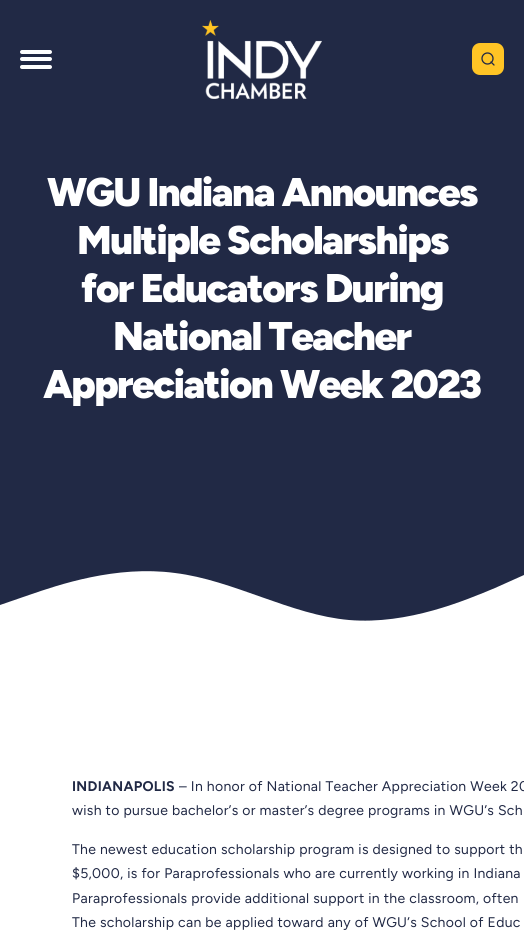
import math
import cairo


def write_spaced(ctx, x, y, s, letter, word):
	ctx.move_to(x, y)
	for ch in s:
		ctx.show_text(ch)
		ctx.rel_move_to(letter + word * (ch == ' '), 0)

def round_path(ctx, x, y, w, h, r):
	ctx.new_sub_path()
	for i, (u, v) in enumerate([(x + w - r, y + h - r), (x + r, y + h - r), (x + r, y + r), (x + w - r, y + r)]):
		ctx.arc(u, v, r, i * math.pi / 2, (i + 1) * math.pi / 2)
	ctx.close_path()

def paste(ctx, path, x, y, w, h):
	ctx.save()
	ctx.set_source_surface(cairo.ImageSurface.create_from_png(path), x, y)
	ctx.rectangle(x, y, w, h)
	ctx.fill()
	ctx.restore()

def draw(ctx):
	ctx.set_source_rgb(1, 1, 1)
	ctx.paint()
	ctx.set_source_rgb(0.129, 0.161, 0.271)
	ctx.rectangle(0, 0, 524, 621)
	ctx.fill()
	ctx.set_source_rgb(1, 1, 1)
	round_path(ctx, 20, 50, 32, 4, 2)
	ctx.fill()
	round_path(ctx, 20, 57, 32, 4, 2)
	ctx.fill()
	round_path(ctx, 20, 65, 32, 4, 2)
	ctx.fill()
	paste(ctx, 'media/1.png', 202, 20, 120, 79)
	ctx.set_source_rgb(1, 0.769, 0.145)
	round_path(ctx, 472, 43, 32, 32, 8)
	ctx.fill()
	ctx.arc(487.5, 58.5, 5.5, 0, 2 * math.pi)
	ctx.set_source_rgb(0.129, 0.161, 0.271)
	ctx.set_line_width(1.3)
	ctx.stroke()
	ctx.new_path()
	ctx.move_to(494, 65)
	ctx.line_to(491, 62)
	ctx.set_line_cap(cairo.LINE_CAP_ROUND)
	ctx.set_line_join(cairo.LINE_JOIN_ROUND)
	ctx.stroke()
	ctx.select_font_face('Figtree Black')
	ctx.set_font_size(40)
	ctx.set_source_rgb(1, 1, 1)
	for x, y, s in [
		(47, 206, 'WGU Indiana Announces'),
		(77, 254, 'Multiple Scholarships'),
		(81, 302, 'for Educators During'),
		(113, 350, 'National Teacher'),
		(43, 398, 'Appreciation Week 2023'),
	]:
		write_spaced(ctx, x, y, s, -1.6, 0)
	ctx.new_path()
	ctx.move_to(0, 605)
	ctx.line_to(29, 595)
	ctx.curve_to(58, 585, 116, 565, 175, 573)
	ctx.curve_to(233, 580, 291, 615, 349, 620)
	ctx.curve_to(408, 625, 466, 600, 495, 588)
	ctx.line_to(524, 575)
	ctx.line_to(524, 695)
	ctx.line_to(0, 695)
	ctx.close_path()
	ctx.fill()
	ctx.select_font_face('Figtree', cairo.FONT_SLANT_NORMAL, cairo.FONT_WEIGHT_BOLD)
	ctx.set_font_size(14)
	ctx.set_source_rgb(0.129, 0.161, 0.271)
	write_spaced(ctx, 72, 791, 'INDIANAPOLIS', 0.32, 0)
	ctx.select_font_face('Figtree')
	for x, y, s in [
		(179, 791, '– In honor of National Teacher Appreciation Week 20'),
		(72, 815, 'wish to pursue bachelor’s or master’s degree programs in WGU’s Sch'),
		(72, 854, 'The newest education scholarship program is designed to support th'),
		(72, 878, '$5,000, is for Paraprofessionals who are currently working in Indiana'),
		(72, 903, 'Paraprofessionals provide additional support in the classroom, often'),
		(72, 927, 'The scholarship can be applied toward any of WGU’s School of Educ'),
	]:
		write_spaced(ctx, x, y, s, 0.32, 0)


surface = cairo.ImageSurface(cairo.FORMAT_RGB24, 524, 939)
ctx = cairo.Context(surface)
options = cairo.FontOptions()
options.set_hint_metrics(cairo.HINT_METRICS_OFF)
options.set_hint_style(cairo.HINT_STYLE_NONE)
ctx.set_font_options(options)
ctx.set_miter_limit(4)
draw(ctx)
surface.write_to_png('image.png')
